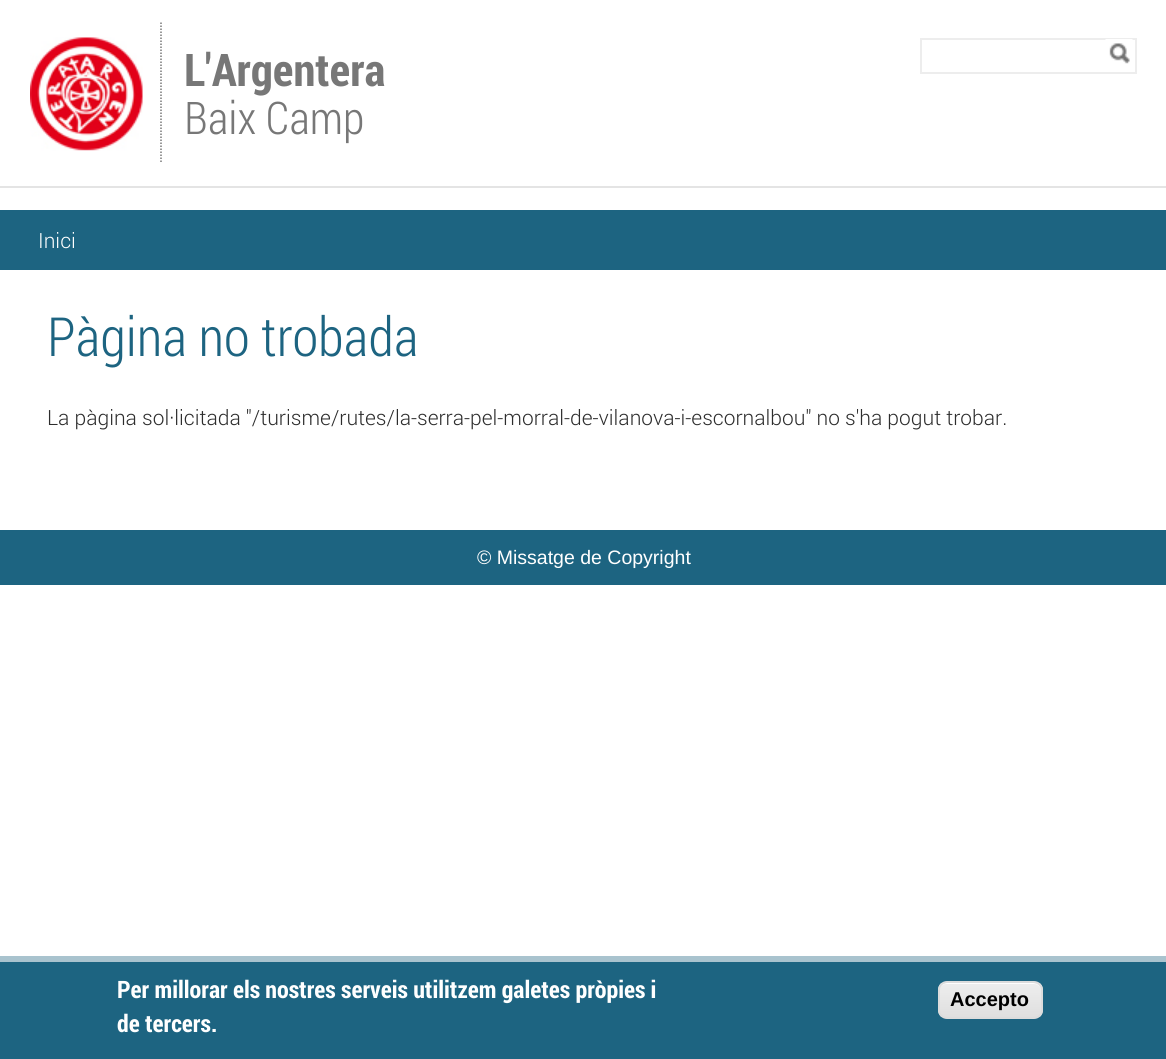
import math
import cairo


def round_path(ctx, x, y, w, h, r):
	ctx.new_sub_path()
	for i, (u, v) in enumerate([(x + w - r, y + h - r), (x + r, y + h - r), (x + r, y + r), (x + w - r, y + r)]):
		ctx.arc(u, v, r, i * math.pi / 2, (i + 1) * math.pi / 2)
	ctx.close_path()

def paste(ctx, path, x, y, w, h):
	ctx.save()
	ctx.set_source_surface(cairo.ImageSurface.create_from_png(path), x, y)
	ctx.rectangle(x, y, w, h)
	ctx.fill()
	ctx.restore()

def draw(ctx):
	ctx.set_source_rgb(1, 1, 1)
	ctx.paint()
	paste(ctx, 'media/1.png', 30, 37, 113, 114)
	ctx.new_path()
	ctx.move_to(161, 22.5)
	ctx.line_to(161, 163.5)
	ctx.set_source_rgb(0.467, 0.467, 0.467)
	ctx.set_line_width(1.5)
	ctx.set_dash([1.5, 1.5])
	ctx.stroke()
	ctx.select_font_face('Roboto Condensed', cairo.FONT_SLANT_NORMAL, cairo.FONT_WEIGHT_BOLD)
	ctx.set_font_size(45)
	ctx.move_to(184, 86)
	ctx.show_text('L\'Argentera')
	ctx.select_font_face('Roboto Condensed Light')
	ctx.move_to(184, 134)
	ctx.show_text('Baix Camp')
	ctx.rectangle(921, 39, 215, 34)
	ctx.set_source_rgb(0.929, 0.929, 0.929)
	ctx.set_line_width(2)
	ctx.set_dash([])
	ctx.stroke()
	paste(ctx, 'media/2.png', 1105, 39, 28, 25)
	ctx.set_source_rgb(0.894, 0.894, 0.894)
	ctx.rectangle(0, 186, 1166, 2)
	ctx.fill()
	ctx.set_source_rgb(0.114, 0.392, 0.506)
	ctx.rectangle(0, 210, 1166, 60)
	ctx.fill()
	ctx.select_font_face('Roboto Light')
	ctx.set_font_size(21)
	ctx.set_source_rgb(1, 1, 1)
	ctx.move_to(38, 248)
	ctx.show_text('Inici')
	ctx.select_font_face('Roboto Condensed Light')
	ctx.set_font_size(54)
	ctx.set_source_rgb(0.114, 0.392, 0.506)
	ctx.move_to(47, 356)
	ctx.show_text('Pàgina no trobada')
	ctx.select_font_face('Roboto Light')
	ctx.set_font_size(21)
	ctx.set_source_rgb(0.176, 0.176, 0.176)
	ctx.move_to(47, 425)
	ctx.show_text('La pàgina sol·licitada "/turisme/rutes/la-serra-pel-morral-de-vilanova-i-escornalbou" no s\'ha pogut trobar.')
	ctx.set_source_rgb(0.114, 0.392, 0.506)
	ctx.rectangle(0, 530, 1166, 55)
	ctx.fill()
	ctx.select_font_face('Liberation Sans')
	ctx.set_font_size(19.5)
	ctx.set_source_rgb(1, 1, 1)
	ctx.move_to(477, 564)
	ctx.show_text('© Missatge de Copyright')
	ctx.set_source_rgb(0.114, 0.392, 0.506)
	ctx.rectangle(0, 962, 1166, 97)
	ctx.fill()
	ctx.set_source_rgb(0.663, 0.765, 0.808)
	ctx.rectangle(0, 956, 1166, 6)
	ctx.fill()
	ctx.select_font_face('Roboto Condensed', cairo.FONT_SLANT_NORMAL, cairo.FONT_WEIGHT_BOLD)
	ctx.set_font_size(24)
	ctx.set_source_rgb(1, 1, 1)
	ctx.move_to(117, 998)
	ctx.show_text('Per millorar els nostres serveis utilitzem galetes pròpies i')
	ctx.move_to(117, 1032)
	ctx.show_text('de tercers.')
	ctx.save()
	round_path(ctx, 938, 981, 105, 38, 9)
	ctx.clip()
	gradient = cairo.LinearGradient(990, 983, 990, 1017)
	gradient.add_color_stop_rgba(0.05, 0.929, 0.929, 0.929, 1)
	gradient.add_color_stop_rgba(1, 0.875, 0.875, 0.875, 1)
	ctx.set_source(gradient)
	ctx.rectangle(938, 983, 105, 34)
	ctx.fill()
	ctx.restore()
	ctx.new_path()
	ctx.move_to(946, 984)
	ctx.line_to(1034, 984)
	ctx.curve_to(1038, 984, 1041, 987, 1041, 992)
	ctx.curve_to(1041, 980, 1027, 983, 1019, 983)
	ctx.line_to(961, 983)
	ctx.curve_to(953, 983, 939, 980, 939, 992)
	ctx.curve_to(939, 987, 942, 984, 946, 984)
	ctx.close_path()
	ctx.fill()
	round_path(ctx, 939, 982, 103, 36, 8)
	ctx.set_source_rgb(0.863, 0.863, 0.863)
	ctx.stroke()
	ctx.select_font_face('Liberation Sans', cairo.FONT_SLANT_NORMAL, cairo.FONT_WEIGHT_BOLD)
	ctx.set_font_size(20)
	ctx.set_source_rgb(0, 0, 0)
	ctx.move_to(950, 1006)
	ctx.show_text('Accepto')


surface = cairo.ImageSurface(cairo.FORMAT_RGB24, 1166, 1059)
ctx = cairo.Context(surface)
options = cairo.FontOptions()
options.set_hint_metrics(cairo.HINT_METRICS_OFF)
options.set_hint_style(cairo.HINT_STYLE_NONE)
ctx.set_font_options(options)
ctx.set_miter_limit(4)
draw(ctx)
surface.write_to_png('image.png')
